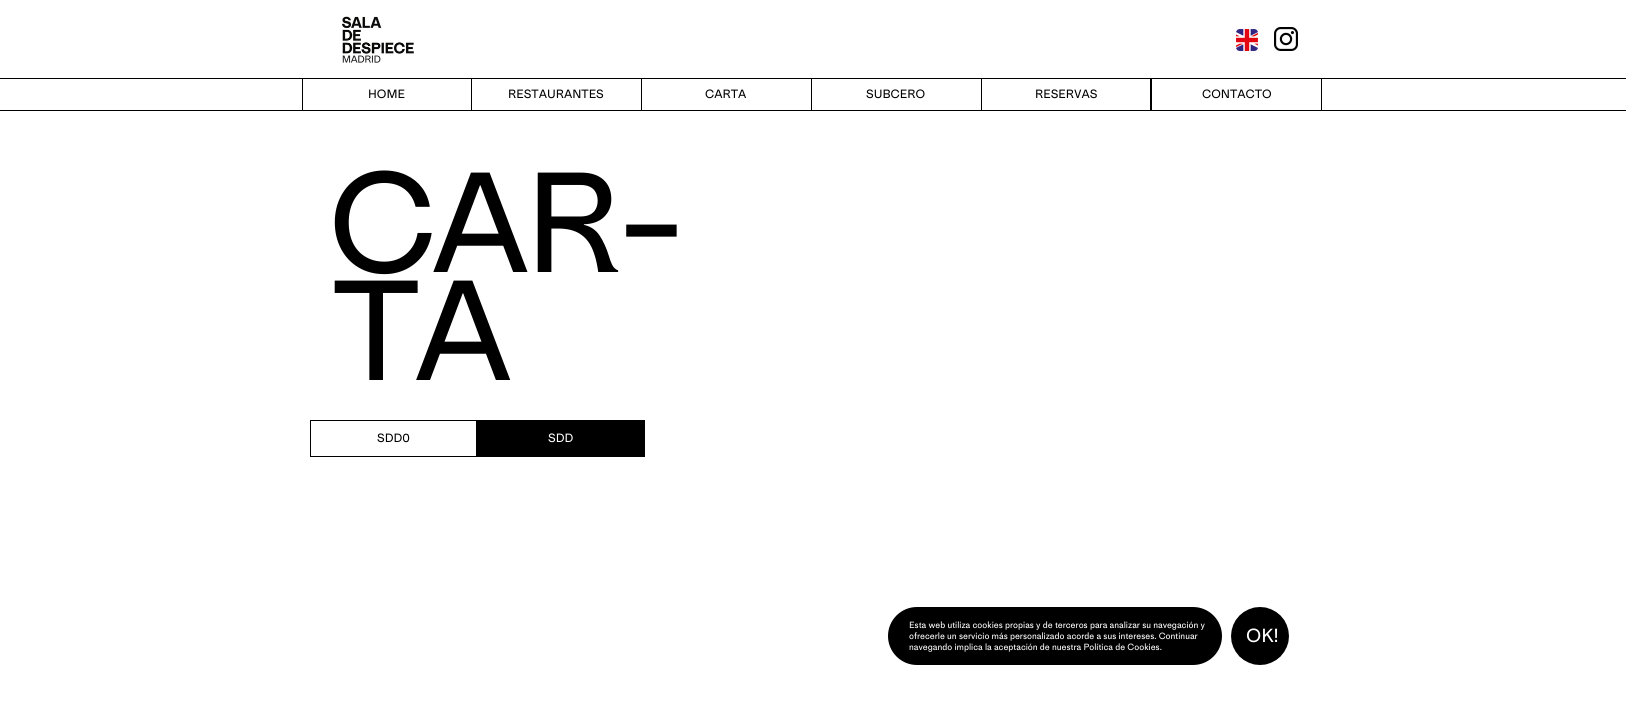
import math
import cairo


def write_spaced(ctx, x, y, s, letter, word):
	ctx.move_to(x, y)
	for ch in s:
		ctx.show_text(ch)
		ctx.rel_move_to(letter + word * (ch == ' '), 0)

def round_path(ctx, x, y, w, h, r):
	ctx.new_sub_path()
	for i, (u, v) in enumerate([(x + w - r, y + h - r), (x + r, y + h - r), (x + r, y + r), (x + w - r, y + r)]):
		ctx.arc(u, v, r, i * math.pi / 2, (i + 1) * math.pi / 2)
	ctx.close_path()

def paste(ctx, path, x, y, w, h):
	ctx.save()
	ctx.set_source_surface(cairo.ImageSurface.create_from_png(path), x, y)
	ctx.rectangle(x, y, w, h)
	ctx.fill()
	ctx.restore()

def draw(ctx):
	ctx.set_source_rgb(1, 1, 1)
	ctx.paint()
	paste(ctx, 'media/1.png', 342, 16, 72, 47)
	paste(ctx, 'media/2.png', 1236, 29, 22, 22)
	paste(ctx, 'media/3.png', 1274, 27, 24, 24)
	ctx.set_source_rgb(0, 0, 0)
	ctx.rectangle(0, 78, 1626, 1)
	ctx.fill()
	ctx.rectangle(0, 110, 1626, 1)
	ctx.fill()
	ctx.rectangle(302.5, 78.5, 169, 32)
	ctx.set_line_width(1)
	ctx.stroke()
	ctx.select_font_face('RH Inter')
	ctx.set_font_size(12)
	ctx.move_to(368, 98)
	ctx.show_text('HOME')
	ctx.rectangle(471.5, 78.5, 170, 32)
	ctx.stroke()
	ctx.move_to(508, 98)
	ctx.show_text('RESTAURANTES')
	ctx.rectangle(641.5, 78.5, 170, 32)
	ctx.stroke()
	ctx.move_to(705, 98)
	ctx.show_text('CARTA')
	ctx.move_to(866, 98)
	ctx.show_text('SUBCERO')
	ctx.rectangle(981.5, 78.5, 169, 32)
	ctx.stroke()
	ctx.move_to(1035, 98)
	ctx.show_text('RESERVAS')
	ctx.rectangle(1151.5, 78.5, 170, 32)
	ctx.stroke()
	ctx.move_to(1202, 98)
	ctx.show_text('CONTACTO')
	round_path(ctx, 888, 607, 334, 58, 29)
	ctx.fill()
	paste(ctx, 'media/4.png', 1231, 607, 58, 58)
	ctx.set_font_size(9)
	ctx.set_source_rgb(1, 1, 1)
	for x, y, s in [
		(909, 628, 'Esta web utiliza cookies propias y de terceros para analizar su navegación y'),
		(909, 639, 'ofrecerle un servicio más personalizado acorde a sus intereses. Continuar'),
		(909, 650, 'navegando implica la aceptación de nuestra Política de Cookies.'),
	]:
		ctx.move_to(x, y)
		ctx.show_text(s)
	ctx.set_font_size(19)
	ctx.move_to(1246, 642)
	ctx.show_text('OK!')
	ctx.set_font_size(142)
	ctx.set_source_rgb(0, 0, 0)
	write_spaced(ctx, 328, 272, 'CAR-', -5, 0)
	write_spaced(ctx, 333, 380, 'TA', -5, 0)
	ctx.rectangle(310.5, 420.5, 166, 36)
	ctx.stroke()
	ctx.set_font_size(12)
	ctx.move_to(377, 442)
	ctx.show_text('SDD0')
	ctx.rectangle(477, 420, 168, 37)
	ctx.fill()
	ctx.set_source_rgb(1, 1, 1)
	ctx.move_to(548, 442)
	ctx.show_text('SDD')


surface = cairo.ImageSurface(cairo.FORMAT_RGB24, 1626, 702)
ctx = cairo.Context(surface)
options = cairo.FontOptions()
options.set_hint_metrics(cairo.HINT_METRICS_OFF)
options.set_hint_style(cairo.HINT_STYLE_NONE)
ctx.set_font_options(options)
ctx.set_miter_limit(4)
draw(ctx)
surface.write_to_png('image.png')
